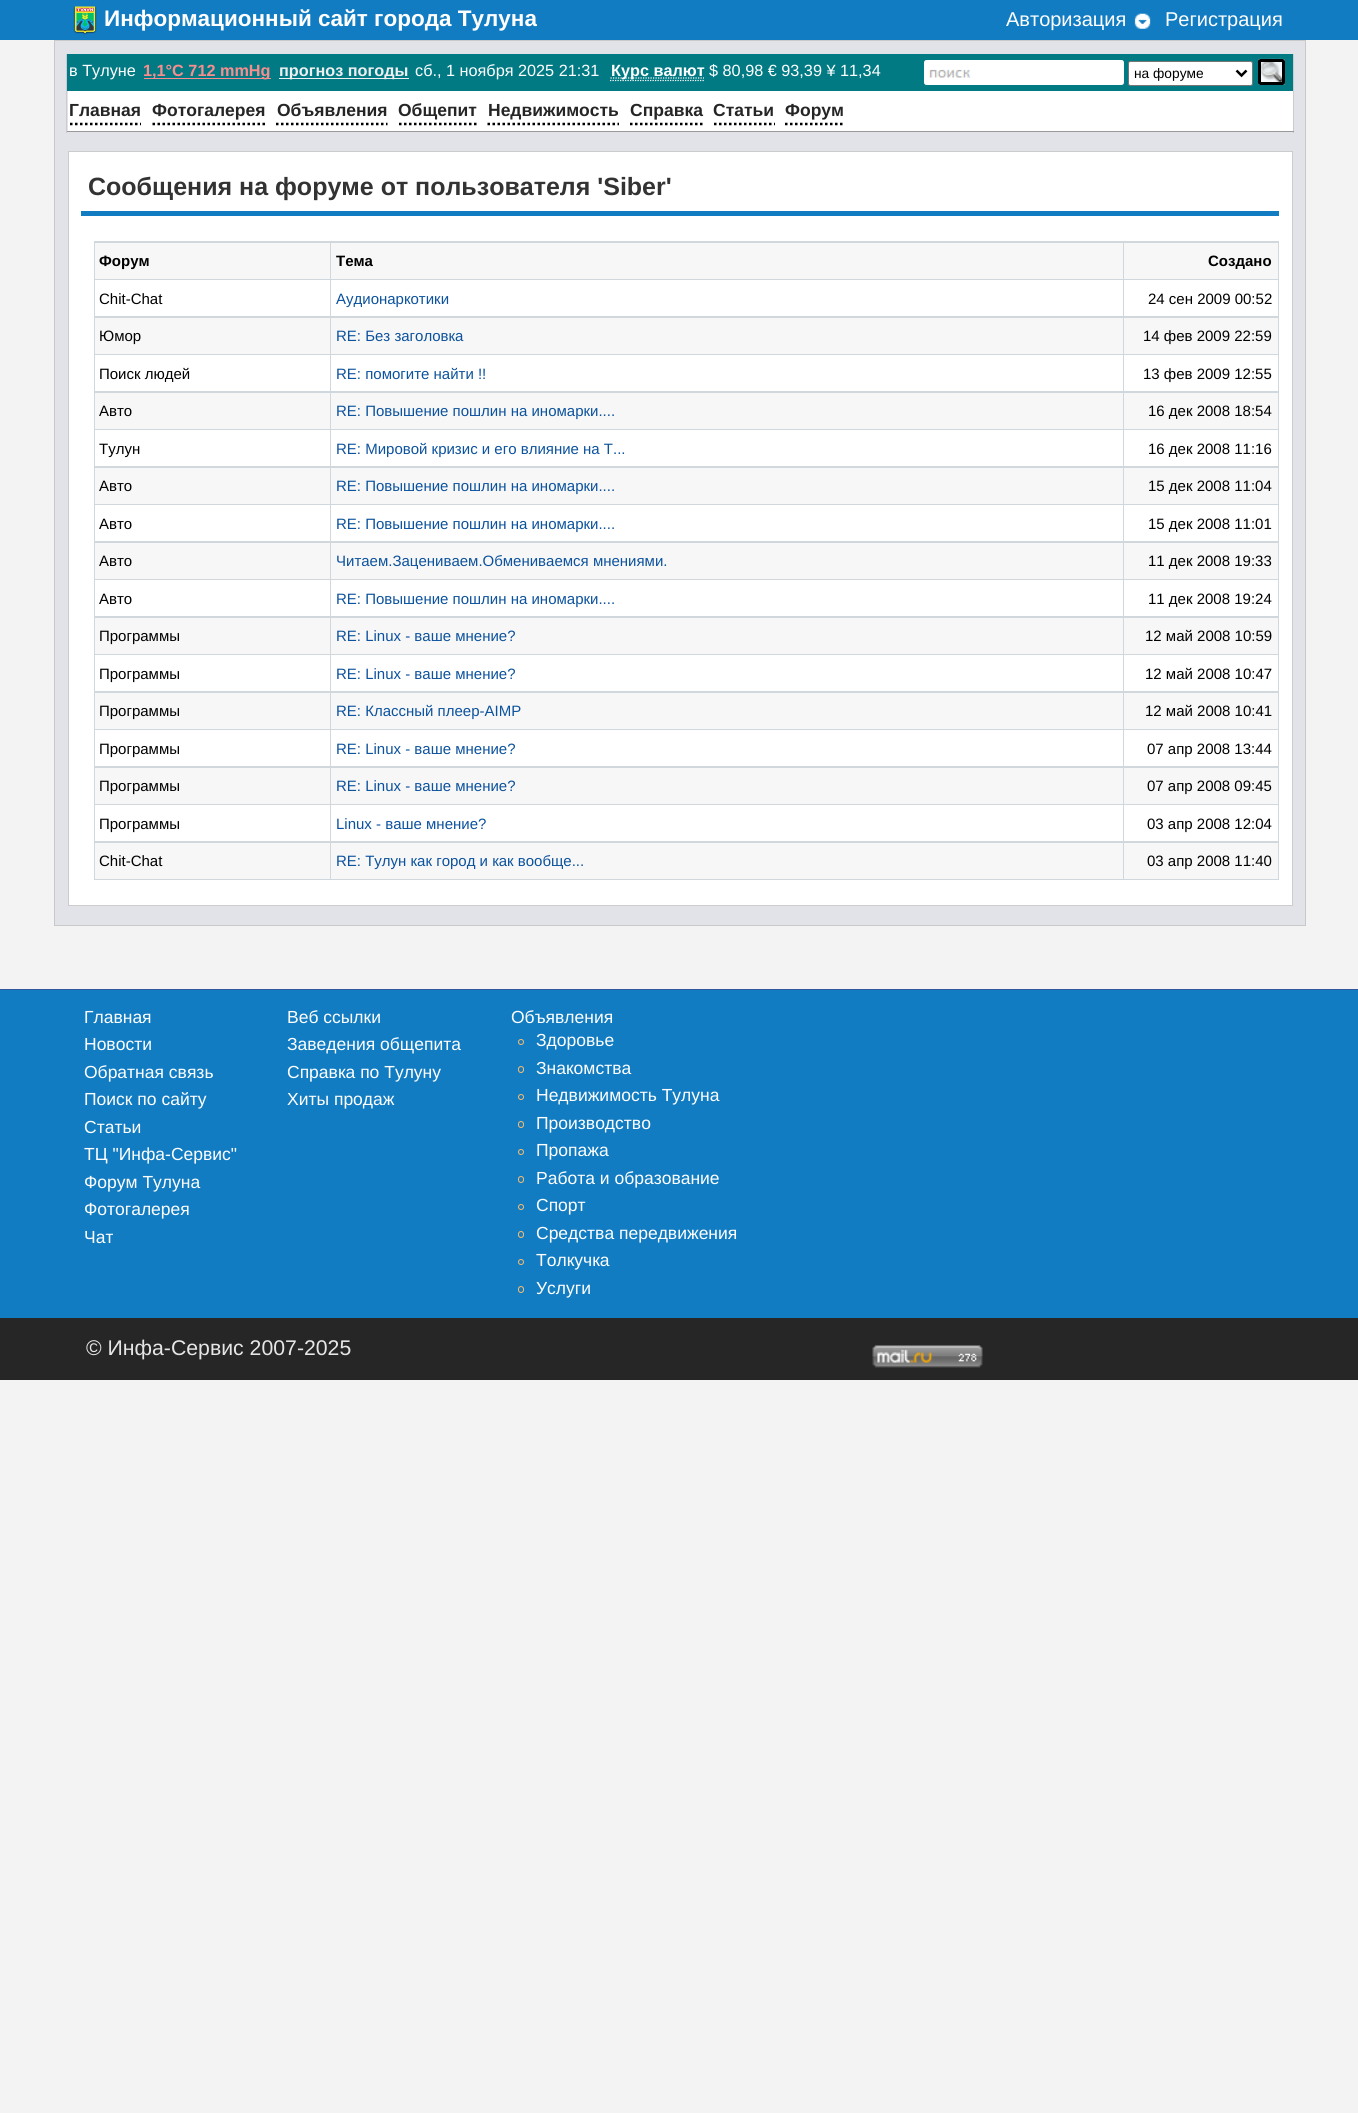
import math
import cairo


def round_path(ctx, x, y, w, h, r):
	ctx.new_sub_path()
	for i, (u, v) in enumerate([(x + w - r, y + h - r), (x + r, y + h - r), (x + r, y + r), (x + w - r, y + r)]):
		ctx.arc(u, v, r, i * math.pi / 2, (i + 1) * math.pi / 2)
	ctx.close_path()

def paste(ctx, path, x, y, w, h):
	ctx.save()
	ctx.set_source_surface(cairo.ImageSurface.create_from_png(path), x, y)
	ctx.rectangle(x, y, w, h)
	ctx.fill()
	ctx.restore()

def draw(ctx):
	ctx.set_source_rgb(0.953, 0.953, 0.953)
	ctx.paint()
	ctx.set_source_rgb(0.071, 0.486, 0.761)
	ctx.rectangle(0, 0, 1358, 40)
	ctx.fill()
	paste(ctx, 'media/1.png', 73, 6, 24, 29)
	ctx.select_font_face('Liberation Sans', cairo.FONT_SLANT_NORMAL, cairo.FONT_WEIGHT_BOLD)
	ctx.set_font_size(22.5)
	ctx.set_source_rgb(1, 1, 1)
	ctx.move_to(104, 26)
	ctx.show_text('Информационный сайт города Тулуна')
	ctx.select_font_face('Liberation Sans')
	ctx.set_font_size(20)
	ctx.move_to(1006, 26)
	ctx.show_text('Авторизация')
	paste(ctx, 'media/2.png', 1134, 13, 17, 16)
	ctx.move_to(1165, 26)
	ctx.show_text('Регистрация')
	ctx.set_source_rgb(0.886, 0.886, 0.914)
	ctx.rectangle(54.5, 40.5, 1251, 885)
	ctx.fill_preserve()
	ctx.set_source_rgb(0.788, 0.788, 0.788)
	ctx.set_line_width(1)
	ctx.stroke()
	ctx.set_source_rgb(0.008, 0.478, 0.518)
	ctx.rectangle(67, 54, 1226, 37)
	ctx.fill()
	ctx.set_source_rgb(0.8, 0.8, 0.8)
	ctx.rectangle(1293, 54, 1, 79)
	ctx.rectangle(66, 54, 1, 37)
	ctx.fill()
	ctx.set_font_size(16.25)
	ctx.set_source_rgb(1, 1, 1)
	ctx.move_to(69, 76)
	ctx.show_text('в Тулуне')
	ctx.set_source_rgb(0.969, 0.553, 0.553)
	ctx.rectangle(144, 78, 127, 1)
	ctx.fill()
	ctx.select_font_face('Liberation Sans', cairo.FONT_SLANT_NORMAL, cairo.FONT_WEIGHT_BOLD)
	ctx.move_to(143, 76)
	ctx.show_text('1,1°C 712 mmHg')
	ctx.set_source_rgb(0.937, 0.937, 0.937)
	ctx.rectangle(279, 78, 130, 1)
	ctx.fill()
	ctx.move_to(279, 76)
	ctx.show_text('прогноз погоды')
	ctx.select_font_face('Liberation Sans')
	ctx.set_source_rgb(1, 1, 1)
	ctx.move_to(415, 76)
	ctx.show_text('сб., 1 ноября 2025 21:31')
	ctx.new_path()
	ctx.move_to(610, 80.5)
	ctx.line_to(704, 80.5)
	ctx.set_line_width(1.2)
	ctx.set_dash([1.25, 1.25])
	ctx.stroke()
	ctx.new_path()
	ctx.move_to(610.5, 78)
	ctx.line_to(704, 78)
	ctx.stroke()
	ctx.select_font_face('Liberation Sans', cairo.FONT_SLANT_NORMAL, cairo.FONT_WEIGHT_BOLD)
	ctx.move_to(611, 76)
	ctx.show_text('Курс валют')
	ctx.select_font_face('Liberation Sans')
	ctx.move_to(709, 76)
	ctx.show_text('$ 80,98 € 93,39 ¥ 11,34')
	round_path(ctx, 924, 60, 200, 25, 2.5)
	ctx.fill()
	paste(ctx, 'media/3.png', 928, 69, 43, 9)
	round_path(ctx, 1128.5, 61.5, 124, 24, 2)
	ctx.fill_preserve()
	ctx.set_source_rgb(0.463, 0.463, 0.463)
	ctx.set_line_width(1)
	ctx.set_dash([])
	ctx.stroke()
	ctx.new_path()
	ctx.move_to(1236.5, 70.5)
	ctx.line_to(1241.5, 75.5)
	ctx.line_to(1246.5, 70.5)
	ctx.set_source_rgb(0, 0, 0)
	ctx.set_line_width(2.5)
	ctx.stroke()
	ctx.set_font_size(13.75)
	ctx.move_to(1134, 78)
	ctx.show_text('на форуме')
	paste(ctx, 'media/4.png', 1258, 58, 27, 27)
	round_path(ctx, 1259.5, 60.5, 24, 23, 1)
	ctx.set_line_width(3)
	ctx.stroke()
	ctx.set_source_rgb(0.6, 0.6, 0.6)
	ctx.rectangle(66, 131, 1228, 1)
	ctx.fill()
	ctx.set_source_rgb(0.8, 0.8, 0.8)
	ctx.rectangle(66, 91, 1, 42)
	ctx.fill()
	ctx.set_source_rgb(1, 1, 1)
	ctx.rectangle(68, 91, 1225, 40)
	ctx.fill()
	ctx.new_path()
	ctx.move_to(70, 124)
	ctx.line_to(141, 124)
	ctx.set_source_rgb(0, 0, 0)
	ctx.set_line_width(2.5)
	ctx.set_dash([2.5, 2.5])
	ctx.stroke()
	ctx.select_font_face('Liberation Sans', cairo.FONT_SLANT_NORMAL, cairo.FONT_WEIGHT_BOLD)
	ctx.set_font_size(17.5)
	ctx.set_source_rgb(0.145, 0.145, 0.145)
	ctx.move_to(69, 116)
	ctx.show_text('Главная')
	ctx.new_path()
	ctx.move_to(152.5, 124)
	ctx.line_to(266, 124)
	ctx.set_source_rgb(0, 0, 0)
	ctx.stroke()
	ctx.set_source_rgb(0.145, 0.145, 0.145)
	ctx.move_to(152, 116)
	ctx.show_text('Фотогалерея')
	ctx.new_path()
	ctx.move_to(276, 124)
	ctx.line_to(387.5, 124)
	ctx.set_source_rgb(0, 0, 0)
	ctx.stroke()
	ctx.set_source_rgb(0.145, 0.145, 0.145)
	ctx.move_to(277, 116)
	ctx.show_text('Объявления')
	ctx.new_path()
	ctx.move_to(399, 124)
	ctx.line_to(477.5, 124)
	ctx.set_source_rgb(0, 0, 0)
	ctx.stroke()
	ctx.set_source_rgb(0.145, 0.145, 0.145)
	ctx.move_to(398, 116)
	ctx.show_text('Общепит')
	ctx.new_path()
	ctx.move_to(487.5, 124)
	ctx.line_to(619, 124)
	ctx.set_source_rgb(0, 0, 0)
	ctx.stroke()
	ctx.set_source_rgb(0.145, 0.145, 0.145)
	ctx.move_to(488, 116)
	ctx.show_text('Недвижимость')
	ctx.new_path()
	ctx.move_to(630, 124)
	ctx.line_to(702.5, 124)
	ctx.set_source_rgb(0, 0, 0)
	ctx.stroke()
	ctx.set_source_rgb(0.145, 0.145, 0.145)
	ctx.move_to(630, 116)
	ctx.show_text('Справка')
	ctx.new_path()
	ctx.move_to(714, 124)
	ctx.line_to(775, 124)
	ctx.set_source_rgb(0, 0, 0)
	ctx.stroke()
	ctx.set_source_rgb(0.145, 0.145, 0.145)
	ctx.move_to(713, 116)
	ctx.show_text('Статьи')
	ctx.new_path()
	ctx.move_to(785, 124)
	ctx.line_to(845, 124)
	ctx.set_source_rgb(0, 0, 0)
	ctx.stroke()
	ctx.set_source_rgb(0.145, 0.145, 0.145)
	ctx.move_to(785, 116)
	ctx.show_text('Форум')
	ctx.set_source_rgb(1, 1, 1)
	ctx.rectangle(68.5, 151.5, 1224, 754)
	ctx.fill_preserve()
	ctx.set_source_rgb(0.8, 0.8, 0.8)
	ctx.set_line_width(1)
	ctx.set_dash([])
	ctx.stroke()
	ctx.set_source_rgb(0.071, 0.486, 0.761)
	ctx.rectangle(81, 211, 1198, 5)
	ctx.fill()
	ctx.set_font_size(25)
	ctx.set_source_rgb(0.2, 0.2, 0.2)
	ctx.move_to(88, 195)
	ctx.show_text('Сообщения на форуме от пользователя \'Siber\'')
	ctx.set_source_rgb(0.82, 0.847, 0.867)
	ctx.rectangle(94, 241, 1185, 639)
	ctx.fill()
	ctx.set_source_rgb(0.965, 0.965, 0.965)
	ctx.rectangle(95, 243, 235, 36)
	ctx.fill()
	ctx.set_font_size(15)
	ctx.set_source_rgb(0, 0, 0)
	ctx.move_to(99, 266)
	ctx.show_text('Форум')
	ctx.set_source_rgb(0.965, 0.965, 0.965)
	ctx.rectangle(331, 243, 792, 36)
	ctx.fill()
	ctx.set_source_rgb(0, 0, 0)
	ctx.move_to(336, 266)
	ctx.show_text('Тема')
	ctx.set_source_rgb(0.965, 0.965, 0.965)
	ctx.rectangle(1124, 243, 154, 36)
	ctx.fill()
	ctx.set_source_rgb(0, 0, 0)
	ctx.move_to(1208, 266)
	ctx.show_text('Создано')
	ctx.set_source_rgb(1, 1, 1)
	ctx.rectangle(95, 280, 235, 36)
	ctx.fill()
	ctx.select_font_face('Liberation Sans')
	ctx.set_source_rgb(0, 0, 0)
	ctx.move_to(99, 304)
	ctx.show_text('Chit-Chat')
	ctx.set_source_rgb(1, 1, 1)
	ctx.rectangle(331, 280, 792, 36)
	ctx.fill()
	ctx.set_source_rgb(0.047, 0.322, 0.616)
	ctx.move_to(336, 304)
	ctx.show_text('Аудионаркотики')
	ctx.set_source_rgb(1, 1, 1)
	ctx.rectangle(1124, 280, 154, 36)
	ctx.fill()
	ctx.set_source_rgb(0, 0, 0)
	ctx.move_to(1148, 304)
	ctx.show_text('24 сен 2009 00:52')
	ctx.set_source_rgb(0.965, 0.965, 0.965)
	ctx.rectangle(95, 318, 235, 36)
	ctx.fill()
	ctx.set_source_rgb(0, 0, 0)
	ctx.move_to(99, 341)
	ctx.show_text('Юмор')
	ctx.set_source_rgb(0.965, 0.965, 0.965)
	ctx.rectangle(331, 318, 792, 36)
	ctx.fill()
	ctx.set_source_rgb(0.047, 0.322, 0.616)
	ctx.move_to(336, 341)
	ctx.show_text('RE: Без заголовка')
	ctx.set_source_rgb(0.965, 0.965, 0.965)
	ctx.rectangle(1124, 318, 154, 36)
	ctx.fill()
	ctx.set_source_rgb(0, 0, 0)
	ctx.move_to(1143, 341)
	ctx.show_text('14 фев 2009 22:59')
	ctx.set_source_rgb(1, 1, 1)
	ctx.rectangle(95, 355, 235, 36)
	ctx.fill()
	ctx.set_source_rgb(0, 0, 0)
	ctx.move_to(99, 379)
	ctx.show_text('Поиск людей')
	ctx.set_source_rgb(1, 1, 1)
	ctx.rectangle(331, 355, 792, 36)
	ctx.fill()
	ctx.set_source_rgb(0.047, 0.322, 0.616)
	ctx.move_to(336, 379)
	ctx.show_text('RE: помогите найти !!')
	ctx.set_source_rgb(1, 1, 1)
	ctx.rectangle(1124, 355, 154, 36)
	ctx.fill()
	ctx.set_source_rgb(0, 0, 0)
	ctx.move_to(1143, 379)
	ctx.show_text('13 фев 2009 12:55')
	ctx.set_source_rgb(0.965, 0.965, 0.965)
	ctx.rectangle(95, 393, 235, 36)
	ctx.fill()
	ctx.set_source_rgb(0, 0, 0)
	ctx.move_to(99, 416)
	ctx.show_text('Авто')
	ctx.set_source_rgb(0.965, 0.965, 0.965)
	ctx.rectangle(331, 393, 792, 36)
	ctx.fill()
	ctx.set_source_rgb(0.047, 0.322, 0.616)
	ctx.move_to(336, 416)
	ctx.show_text('RE: Повышение пошлин на иномарки....')
	ctx.set_source_rgb(0.965, 0.965, 0.965)
	ctx.rectangle(1124, 393, 154, 36)
	ctx.fill()
	ctx.set_source_rgb(0, 0, 0)
	ctx.move_to(1148, 416)
	ctx.show_text('16 дек 2008 18:54')
	ctx.set_source_rgb(1, 1, 1)
	ctx.rectangle(95, 430, 235, 36)
	ctx.fill()
	ctx.set_source_rgb(0, 0, 0)
	ctx.move_to(99, 454)
	ctx.show_text('Тулун')
	ctx.set_source_rgb(1, 1, 1)
	ctx.rectangle(331, 430, 792, 36)
	ctx.fill()
	ctx.set_source_rgb(0.047, 0.322, 0.616)
	ctx.move_to(336, 454)
	ctx.show_text('RE: Мировой кризис и его влияние на Т...')
	ctx.set_source_rgb(1, 1, 1)
	ctx.rectangle(1124, 430, 154, 36)
	ctx.fill()
	ctx.set_source_rgb(0, 0, 0)
	ctx.move_to(1148, 454)
	ctx.show_text('16 дек 2008 11:16')
	ctx.set_source_rgb(0.965, 0.965, 0.965)
	ctx.rectangle(95, 468, 235, 36)
	ctx.fill()
	ctx.set_source_rgb(0, 0, 0)
	ctx.move_to(99, 491)
	ctx.show_text('Авто')
	ctx.set_source_rgb(0.965, 0.965, 0.965)
	ctx.rectangle(331, 468, 792, 36)
	ctx.fill()
	ctx.set_source_rgb(0.047, 0.322, 0.616)
	ctx.move_to(336, 491)
	ctx.show_text('RE: Повышение пошлин на иномарки....')
	ctx.set_source_rgb(0.965, 0.965, 0.965)
	ctx.rectangle(1124, 468, 154, 36)
	ctx.fill()
	ctx.set_source_rgb(0, 0, 0)
	ctx.move_to(1148, 491)
	ctx.show_text('15 дек 2008 11:04')
	ctx.set_source_rgb(1, 1, 1)
	ctx.rectangle(95, 505, 235, 36)
	ctx.fill()
	ctx.set_source_rgb(0, 0, 0)
	ctx.move_to(99, 529)
	ctx.show_text('Авто')
	ctx.set_source_rgb(1, 1, 1)
	ctx.rectangle(331, 505, 792, 36)
	ctx.fill()
	ctx.set_source_rgb(0.047, 0.322, 0.616)
	ctx.move_to(336, 529)
	ctx.show_text('RE: Повышение пошлин на иномарки....')
	ctx.set_source_rgb(1, 1, 1)
	ctx.rectangle(1124, 505, 154, 36)
	ctx.fill()
	ctx.set_source_rgb(0, 0, 0)
	ctx.move_to(1148, 529)
	ctx.show_text('15 дек 2008 11:01')
	ctx.set_source_rgb(0.965, 0.965, 0.965)
	ctx.rectangle(95, 543, 235, 36)
	ctx.fill()
	ctx.set_source_rgb(0, 0, 0)
	ctx.move_to(99, 566)
	ctx.show_text('Авто')
	ctx.set_source_rgb(0.965, 0.965, 0.965)
	ctx.rectangle(331, 543, 792, 36)
	ctx.fill()
	ctx.set_source_rgb(0.047, 0.322, 0.616)
	ctx.move_to(336, 566)
	ctx.show_text('Читаем.Зацениваем.Обмениваемся мнениями.')
	ctx.set_source_rgb(0.965, 0.965, 0.965)
	ctx.rectangle(1124, 543, 154, 36)
	ctx.fill()
	ctx.set_source_rgb(0, 0, 0)
	ctx.move_to(1148, 566)
	ctx.show_text('11 дек 2008 19:33')
	ctx.set_source_rgb(1, 1, 1)
	ctx.rectangle(95, 580, 235, 36)
	ctx.fill()
	ctx.set_source_rgb(0, 0, 0)
	ctx.move_to(99, 604)
	ctx.show_text('Авто')
	ctx.set_source_rgb(1, 1, 1)
	ctx.rectangle(331, 580, 792, 36)
	ctx.fill()
	ctx.set_source_rgb(0.047, 0.322, 0.616)
	ctx.move_to(336, 604)
	ctx.show_text('RE: Повышение пошлин на иномарки....')
	ctx.set_source_rgb(1, 1, 1)
	ctx.rectangle(1124, 580, 154, 36)
	ctx.fill()
	ctx.set_source_rgb(0, 0, 0)
	ctx.move_to(1148, 604)
	ctx.show_text('11 дек 2008 19:24')
	ctx.set_source_rgb(0.965, 0.965, 0.965)
	ctx.rectangle(95, 618, 235, 36)
	ctx.fill()
	ctx.set_source_rgb(0, 0, 0)
	ctx.move_to(99, 641)
	ctx.show_text('Программы')
	ctx.set_source_rgb(0.965, 0.965, 0.965)
	ctx.rectangle(331, 618, 792, 36)
	ctx.fill()
	ctx.set_source_rgb(0.047, 0.322, 0.616)
	ctx.move_to(336, 641)
	ctx.show_text('RE: Linux - ваше мнение?')
	ctx.set_source_rgb(0.965, 0.965, 0.965)
	ctx.rectangle(1124, 618, 154, 36)
	ctx.fill()
	ctx.set_source_rgb(0, 0, 0)
	ctx.move_to(1145, 641)
	ctx.show_text('12 май 2008 10:59')
	ctx.set_source_rgb(1, 1, 1)
	ctx.rectangle(95, 655, 235, 36)
	ctx.fill()
	ctx.set_source_rgb(0, 0, 0)
	ctx.move_to(99, 679)
	ctx.show_text('Программы')
	ctx.set_source_rgb(1, 1, 1)
	ctx.rectangle(331, 655, 792, 36)
	ctx.fill()
	ctx.set_source_rgb(0.047, 0.322, 0.616)
	ctx.move_to(336, 679)
	ctx.show_text('RE: Linux - ваше мнение?')
	ctx.set_source_rgb(1, 1, 1)
	ctx.rectangle(1124, 655, 154, 36)
	ctx.fill()
	ctx.set_source_rgb(0, 0, 0)
	ctx.move_to(1145, 679)
	ctx.show_text('12 май 2008 10:47')
	ctx.set_source_rgb(0.965, 0.965, 0.965)
	ctx.rectangle(95, 693, 235, 36)
	ctx.fill()
	ctx.set_source_rgb(0, 0, 0)
	ctx.move_to(99, 716)
	ctx.show_text('Программы')
	ctx.set_source_rgb(0.965, 0.965, 0.965)
	ctx.rectangle(331, 693, 792, 36)
	ctx.fill()
	ctx.set_source_rgb(0.047, 0.322, 0.616)
	ctx.move_to(336, 716)
	ctx.show_text('RE: Классный плеер-AIMP')
	ctx.set_source_rgb(0.965, 0.965, 0.965)
	ctx.rectangle(1124, 693, 154, 36)
	ctx.fill()
	ctx.set_source_rgb(0, 0, 0)
	ctx.move_to(1145, 716)
	ctx.show_text('12 май 2008 10:41')
	ctx.set_source_rgb(1, 1, 1)
	ctx.rectangle(95, 730, 235, 36)
	ctx.fill()
	ctx.set_source_rgb(0, 0, 0)
	ctx.move_to(99, 754)
	ctx.show_text('Программы')
	ctx.set_source_rgb(1, 1, 1)
	ctx.rectangle(331, 730, 792, 36)
	ctx.fill()
	ctx.set_source_rgb(0.047, 0.322, 0.616)
	ctx.move_to(336, 754)
	ctx.show_text('RE: Linux - ваше мнение?')
	ctx.set_source_rgb(1, 1, 1)
	ctx.rectangle(1124, 730, 154, 36)
	ctx.fill()
	ctx.set_source_rgb(0, 0, 0)
	ctx.move_to(1147, 754)
	ctx.show_text('07 апр 2008 13:44')
	ctx.set_source_rgb(0.965, 0.965, 0.965)
	ctx.rectangle(95, 768, 235, 36)
	ctx.fill()
	ctx.set_source_rgb(0, 0, 0)
	ctx.move_to(99, 791)
	ctx.show_text('Программы')
	ctx.set_source_rgb(0.965, 0.965, 0.965)
	ctx.rectangle(331, 768, 792, 36)
	ctx.fill()
	ctx.set_source_rgb(0.047, 0.322, 0.616)
	ctx.move_to(336, 791)
	ctx.show_text('RE: Linux - ваше мнение?')
	ctx.set_source_rgb(0.965, 0.965, 0.965)
	ctx.rectangle(1124, 768, 154, 36)
	ctx.fill()
	ctx.set_source_rgb(0, 0, 0)
	ctx.move_to(1147, 791)
	ctx.show_text('07 апр 2008 09:45')
	ctx.set_source_rgb(1, 1, 1)
	ctx.rectangle(95, 805, 235, 36)
	ctx.fill()
	ctx.set_source_rgb(0, 0, 0)
	ctx.move_to(99, 829)
	ctx.show_text('Программы')
	ctx.set_source_rgb(1, 1, 1)
	ctx.rectangle(331, 805, 792, 36)
	ctx.fill()
	ctx.set_source_rgb(0.047, 0.322, 0.616)
	ctx.move_to(336, 829)
	ctx.show_text('Linux - ваше мнение?')
	ctx.set_source_rgb(1, 1, 1)
	ctx.rectangle(1124, 805, 154, 36)
	ctx.fill()
	ctx.set_source_rgb(0, 0, 0)
	ctx.move_to(1147, 829)
	ctx.show_text('03 апр 2008 12:04')
	ctx.set_source_rgb(0.965, 0.965, 0.965)
	ctx.rectangle(95, 843, 235, 36)
	ctx.fill()
	ctx.set_source_rgb(0, 0, 0)
	ctx.move_to(99, 866)
	ctx.show_text('Chit-Chat')
	ctx.set_source_rgb(0.965, 0.965, 0.965)
	ctx.rectangle(331, 843, 792, 36)
	ctx.fill()
	ctx.set_source_rgb(0.047, 0.322, 0.616)
	ctx.move_to(336, 866)
	ctx.show_text('RE: Тулун как город и как вообще...')
	ctx.set_source_rgb(0.965, 0.965, 0.965)
	ctx.rectangle(1124, 843, 154, 36)
	ctx.fill()
	ctx.set_source_rgb(0, 0, 0)
	ctx.move_to(1147, 866)
	ctx.show_text('03 апр 2008 11:40')
	ctx.set_source_rgb(0.071, 0.486, 0.761)
	ctx.rectangle(0, 990, 1358, 328)
	ctx.fill()
	ctx.set_source_rgb(0.176, 0.349, 0.612)
	ctx.rectangle(0, 989, 1358, 1)
	ctx.fill()
	ctx.set_font_size(17.5)
	ctx.set_source_rgb(1, 1, 1)
	for x, y, s in [
		(84, 1023, 'Главная'),
		(84, 1050, 'Новости'),
		(84, 1078, 'Обратная связь'),
		(84, 1105, 'Поиск по сайту'),
		(84, 1133, 'Статьи'),
		(84, 1160, 'ТЦ "Инфа-Сервис"'),
		(84, 1188, 'Форум Тулуна'),
		(84, 1215, 'Фотогалерея'),
		(84, 1243, 'Чат'),
		(287, 1023, 'Веб ссылки'),
		(287, 1050, 'Заведения общепита'),
		(287, 1078, 'Справка по Тулуну'),
		(287, 1105, 'Хиты продаж'),
		(511, 1023, 'Объявления'),
	]:
		ctx.move_to(x, y)
		ctx.show_text(s)
	ctx.new_path()
	ctx.arc(521, 1042, 2.5, 0, 2 * math.pi)
	ctx.set_source_rgb(0.976, 0.737, 0.427)
	ctx.stroke()
	ctx.set_source_rgb(1, 1, 1)
	ctx.move_to(536, 1046)
	ctx.show_text('Здоровье')
	round_path(ctx, 518.5, 1066.5, 5, 6, 2.5)
	ctx.set_source_rgb(0.976, 0.737, 0.427)
	ctx.stroke()
	ctx.set_source_rgb(1, 1, 1)
	ctx.move_to(536, 1074)
	ctx.show_text('Знакомства')
	ctx.new_path()
	ctx.arc(521, 1097, 2.5, 0, 2 * math.pi)
	ctx.set_source_rgb(0.976, 0.737, 0.427)
	ctx.stroke()
	ctx.set_source_rgb(1, 1, 1)
	ctx.move_to(536, 1101)
	ctx.show_text('Недвижимость Тулуна')
	round_path(ctx, 518.5, 1121.5, 5, 6, 2.5)
	ctx.set_source_rgb(0.976, 0.737, 0.427)
	ctx.stroke()
	ctx.set_source_rgb(1, 1, 1)
	ctx.move_to(536, 1129)
	ctx.show_text('Производство')
	ctx.new_path()
	ctx.arc(521, 1152, 2.5, 0, 2 * math.pi)
	ctx.set_source_rgb(0.976, 0.737, 0.427)
	ctx.stroke()
	ctx.set_source_rgb(1, 1, 1)
	ctx.move_to(536, 1156)
	ctx.show_text('Пропажа')
	round_path(ctx, 518.5, 1176.5, 5, 6, 2.5)
	ctx.set_source_rgb(0.976, 0.737, 0.427)
	ctx.stroke()
	ctx.set_source_rgb(1, 1, 1)
	ctx.move_to(536, 1184)
	ctx.show_text('Работа и образование')
	ctx.new_path()
	ctx.arc(521, 1207, 2.5, 0, 2 * math.pi)
	ctx.set_source_rgb(0.976, 0.737, 0.427)
	ctx.stroke()
	ctx.set_source_rgb(1, 1, 1)
	ctx.move_to(536, 1211)
	ctx.show_text('Спорт')
	round_path(ctx, 518.5, 1231.5, 5, 6, 2.5)
	ctx.set_source_rgb(0.976, 0.737, 0.427)
	ctx.stroke()
	ctx.set_source_rgb(1, 1, 1)
	ctx.move_to(536, 1239)
	ctx.show_text('Средства передвижения')
	ctx.new_path()
	ctx.arc(521, 1262, 2.5, 0, 2 * math.pi)
	ctx.set_source_rgb(0.976, 0.737, 0.427)
	ctx.stroke()
	ctx.set_source_rgb(1, 1, 1)
	ctx.move_to(536, 1266)
	ctx.show_text('Толкучка')
	round_path(ctx, 518.5, 1286.5, 5, 6, 2.5)
	ctx.set_source_rgb(0.976, 0.737, 0.427)
	ctx.stroke()
	ctx.set_source_rgb(1, 1, 1)
	ctx.move_to(536, 1294)
	ctx.show_text('Услуги')
	ctx.set_source_rgb(0.149, 0.149, 0.149)
	ctx.rectangle(0, 1318, 1358, 62)
	ctx.fill()
	ctx.set_font_size(21.25)
	ctx.set_source_rgb(0.902, 0.902, 0.902)
	ctx.move_to(86, 1355)
	ctx.show_text('© Инфа-Сервис 2007-2025')
	paste(ctx, 'media/5.png', 872, 1345, 111, 23)


surface = cairo.ImageSurface(cairo.FORMAT_RGB24, 1358, 2113)
ctx = cairo.Context(surface)
options = cairo.FontOptions()
options.set_hint_metrics(cairo.HINT_METRICS_OFF)
options.set_hint_style(cairo.HINT_STYLE_NONE)
ctx.set_font_options(options)
ctx.set_miter_limit(4)
draw(ctx)
surface.write_to_png('image.png')
